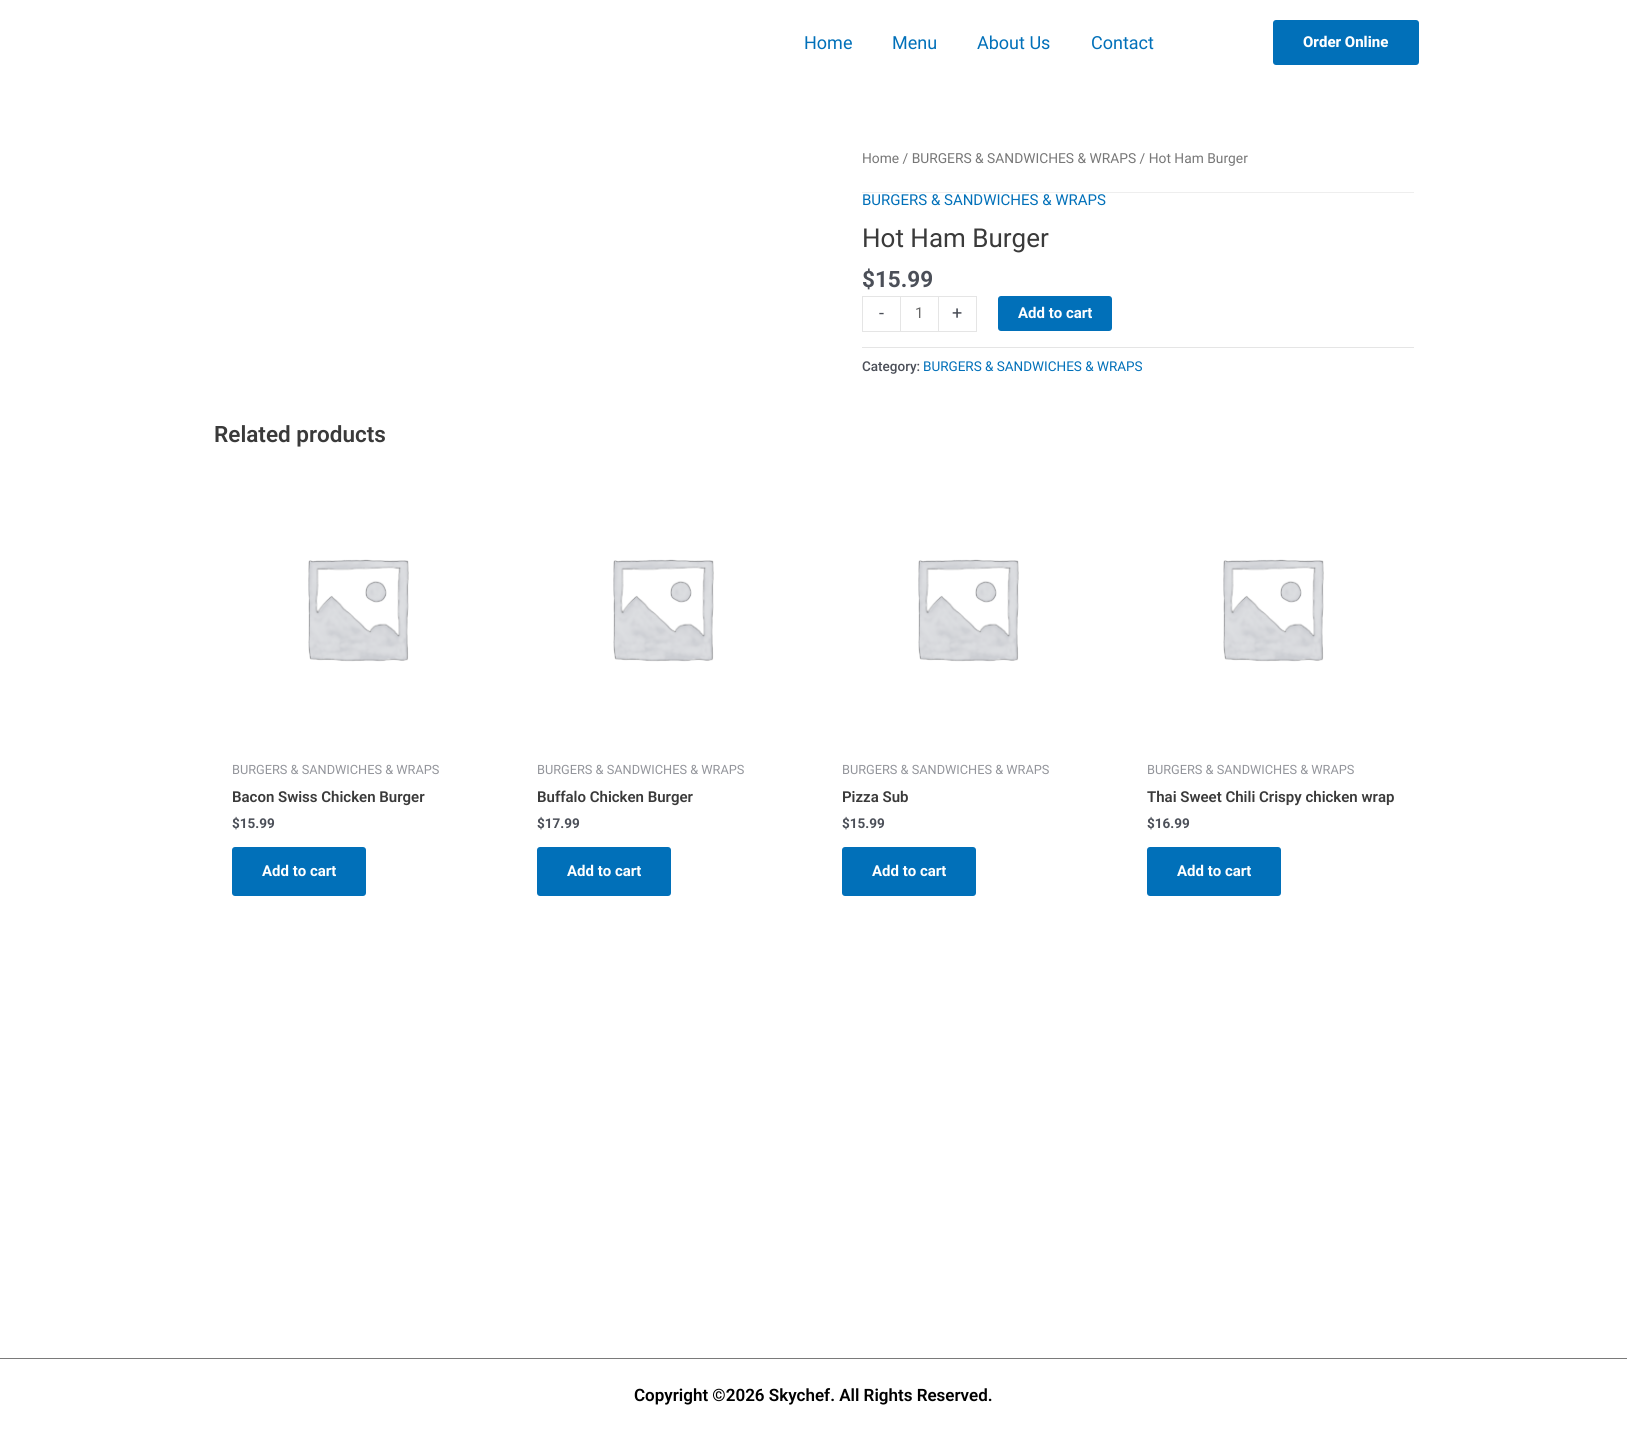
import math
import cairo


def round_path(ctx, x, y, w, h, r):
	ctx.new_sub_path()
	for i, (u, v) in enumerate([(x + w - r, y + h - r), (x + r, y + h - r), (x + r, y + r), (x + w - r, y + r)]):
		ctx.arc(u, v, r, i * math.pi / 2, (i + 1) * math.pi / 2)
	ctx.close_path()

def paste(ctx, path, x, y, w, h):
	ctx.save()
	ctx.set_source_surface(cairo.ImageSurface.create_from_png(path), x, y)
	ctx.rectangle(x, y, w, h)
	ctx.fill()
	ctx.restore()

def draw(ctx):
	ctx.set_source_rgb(1, 1, 1)
	ctx.paint()
	ctx.select_font_face('Roboto')
	ctx.set_font_size(18)
	ctx.set_source_rgb(0.004, 0.439, 0.725)
	for x, y, s in [
		(804, 49, 'Home'),
		(892, 49, 'Menu'),
		(977, 49, 'About Us'),
		(1091, 49, 'Contact'),
	]:
		ctx.move_to(x, y)
		ctx.show_text(s)
	round_path(ctx, 1273, 20, 146, 45, 3)
	ctx.fill()
	ctx.select_font_face('Roboto ExtraBold')
	ctx.set_font_size(15)
	ctx.set_source_rgb(1, 1, 1)
	ctx.move_to(1303, 47)
	ctx.show_text('Order Online')
	ctx.select_font_face('Roboto')
	ctx.set_font_size(13.8)
	ctx.set_source_rgb(0.467, 0.467, 0.467)
	ctx.move_to(862, 163)
	ctx.show_text('Home / BURGERS & SANDWICHES & WRAPS / Hot Ham Burger')
	ctx.set_source_rgb(0.933, 0.933, 0.933)
	ctx.rectangle(862, 192, 552, 1)
	ctx.fill()
	ctx.set_font_size(15)
	ctx.set_source_rgb(0.004, 0.439, 0.725)
	ctx.move_to(862, 205)
	ctx.show_text('BURGERS & SANDWICHES & WRAPS')
	ctx.set_font_size(26)
	ctx.set_source_rgb(0.227, 0.227, 0.227)
	ctx.move_to(862, 247)
	ctx.show_text('Hot Ham Burger')
	ctx.select_font_face('Roboto', cairo.FONT_SLANT_NORMAL, cairo.FONT_WEIGHT_BOLD)
	ctx.set_font_size(22.5)
	ctx.set_source_rgb(0.294, 0.31, 0.345)
	ctx.move_to(862, 287)
	ctx.show_text('$15.99')
	ctx.set_source_rgb(0.898, 0.898, 0.898)
	ctx.rectangle(862, 296, 38, 1)
	ctx.rectangle(862, 331, 38, 1)
	ctx.rectangle(862, 296, 1, 36)
	ctx.fill()
	ctx.select_font_face('Roboto')
	ctx.set_font_size(18)
	ctx.set_source_rgb(0.294, 0.31, 0.345)
	ctx.move_to(879, 319)
	ctx.show_text('-')
	ctx.rectangle(900.5, 296.5, 38, 35)
	ctx.set_source_rgb(0.898, 0.898, 0.898)
	ctx.set_line_width(1)
	ctx.stroke()
	ctx.set_font_size(15)
	ctx.set_source_rgb(0.4, 0.4, 0.4)
	ctx.move_to(915, 318)
	ctx.show_text('1')
	ctx.set_source_rgb(0.898, 0.898, 0.898)
	ctx.rectangle(939, 296, 38, 1)
	ctx.rectangle(976, 296, 1, 36)
	ctx.rectangle(939, 331, 38, 1)
	ctx.fill()
	ctx.set_font_size(18)
	ctx.set_source_rgb(0.294, 0.31, 0.345)
	ctx.move_to(952, 319)
	ctx.show_text('+')
	ctx.set_source_rgb(0.004, 0.439, 0.725)
	round_path(ctx, 998, 296, 114, 35, 3)
	ctx.fill()
	ctx.select_font_face('Roboto', cairo.FONT_SLANT_NORMAL, cairo.FONT_WEIGHT_BOLD)
	ctx.set_font_size(15)
	ctx.set_source_rgb(1, 1, 1)
	ctx.move_to(1018, 318)
	ctx.show_text('Add to cart')
	ctx.set_source_rgb(0.898, 0.898, 0.898)
	ctx.rectangle(862, 347, 552, 1)
	ctx.fill()
	ctx.select_font_face('Roboto Medium')
	ctx.set_font_size(13.5)
	ctx.set_source_rgb(0.294, 0.31, 0.345)
	ctx.move_to(862, 371)
	ctx.show_text('Category:')
	ctx.select_font_face('Roboto')
	ctx.set_source_rgb(0.004, 0.439, 0.725)
	ctx.move_to(923, 371)
	ctx.show_text('BURGERS & SANDWICHES & WRAPS')
	ctx.select_font_face('Roboto SemiBold')
	ctx.set_font_size(22.5)
	ctx.set_source_rgb(0.227, 0.227, 0.227)
	ctx.move_to(214, 442)
	ctx.show_text('Related products')
	paste(ctx, 'media/1.png', 308, 559, 101, 103)
	ctx.select_font_face('Roboto')
	ctx.set_font_size(12.75)
	ctx.set_source_rgb(0.576, 0.584, 0.608)
	ctx.move_to(232, 774)
	ctx.show_text('BURGERS & SANDWICHES & WRAPS')
	ctx.select_font_face('Roboto SemiBold')
	ctx.set_font_size(15)
	ctx.set_source_rgb(0.227, 0.227, 0.227)
	ctx.move_to(232, 802)
	ctx.show_text('Bacon Swiss Chicken Burger')
	ctx.select_font_face('Roboto', cairo.FONT_SLANT_NORMAL, cairo.FONT_WEIGHT_BOLD)
	ctx.set_font_size(13.5)
	ctx.set_source_rgb(0.294, 0.31, 0.345)
	ctx.move_to(232, 828)
	ctx.show_text('$15.99')
	ctx.set_source_rgb(0.004, 0.439, 0.725)
	round_path(ctx, 232, 847, 134, 49, 3)
	ctx.fill()
	ctx.set_font_size(15)
	ctx.set_source_rgb(1, 1, 1)
	ctx.move_to(262, 876)
	ctx.show_text('Add to cart')
	paste(ctx, 'media/2.png', 613, 559, 101, 103)
	ctx.select_font_face('Roboto')
	ctx.set_font_size(12.75)
	ctx.set_source_rgb(0.576, 0.584, 0.608)
	ctx.move_to(537, 774)
	ctx.show_text('BURGERS & SANDWICHES & WRAPS')
	ctx.select_font_face('Roboto SemiBold')
	ctx.set_font_size(15)
	ctx.set_source_rgb(0.227, 0.227, 0.227)
	ctx.move_to(537, 802)
	ctx.show_text('Buffalo Chicken Burger')
	ctx.select_font_face('Roboto', cairo.FONT_SLANT_NORMAL, cairo.FONT_WEIGHT_BOLD)
	ctx.set_font_size(13.5)
	ctx.set_source_rgb(0.294, 0.31, 0.345)
	ctx.move_to(537, 828)
	ctx.show_text('$17.99')
	ctx.set_source_rgb(0.004, 0.439, 0.725)
	round_path(ctx, 537, 847, 134, 49, 3)
	ctx.fill()
	ctx.set_font_size(15)
	ctx.set_source_rgb(1, 1, 1)
	ctx.move_to(567, 876)
	ctx.show_text('Add to cart')
	paste(ctx, 'media/1.png', 918, 559, 101, 103)
	ctx.select_font_face('Roboto')
	ctx.set_font_size(12.75)
	ctx.set_source_rgb(0.576, 0.584, 0.608)
	ctx.move_to(842, 774)
	ctx.show_text('BURGERS & SANDWICHES & WRAPS')
	ctx.select_font_face('Roboto SemiBold')
	ctx.set_font_size(15)
	ctx.set_source_rgb(0.227, 0.227, 0.227)
	ctx.move_to(842, 802)
	ctx.show_text('Pizza Sub')
	ctx.select_font_face('Roboto', cairo.FONT_SLANT_NORMAL, cairo.FONT_WEIGHT_BOLD)
	ctx.set_font_size(13.5)
	ctx.set_source_rgb(0.294, 0.31, 0.345)
	ctx.move_to(842, 828)
	ctx.show_text('$15.99')
	ctx.set_source_rgb(0.004, 0.439, 0.725)
	round_path(ctx, 842, 847, 134, 49, 3)
	ctx.fill()
	ctx.set_font_size(15)
	ctx.set_source_rgb(1, 1, 1)
	ctx.move_to(872, 876)
	ctx.show_text('Add to cart')
	paste(ctx, 'media/2.png', 1223, 559, 101, 103)
	ctx.select_font_face('Roboto')
	ctx.set_font_size(12.75)
	ctx.set_source_rgb(0.576, 0.584, 0.608)
	ctx.move_to(1147, 774)
	ctx.show_text('BURGERS & SANDWICHES & WRAPS')
	ctx.select_font_face('Roboto SemiBold')
	ctx.set_font_size(15)
	ctx.set_source_rgb(0.227, 0.227, 0.227)
	ctx.move_to(1147, 802)
	ctx.show_text('Thai Sweet Chili Crispy chicken wrap')
	ctx.select_font_face('Roboto', cairo.FONT_SLANT_NORMAL, cairo.FONT_WEIGHT_BOLD)
	ctx.set_font_size(13.5)
	ctx.set_source_rgb(0.294, 0.31, 0.345)
	ctx.move_to(1147, 828)
	ctx.show_text('$16.99')
	ctx.set_source_rgb(0.004, 0.439, 0.725)
	round_path(ctx, 1147, 847, 134, 49, 3)
	ctx.fill()
	ctx.set_font_size(15)
	ctx.set_source_rgb(1, 1, 1)
	ctx.move_to(1177, 876)
	ctx.show_text('Add to cart')
	ctx.set_source_rgb(0.478, 0.478, 0.478)
	ctx.rectangle(0, 1358, 1627, 1)
	ctx.fill()
	ctx.select_font_face('Roboto SemiBold')
	ctx.set_font_size(17)
	ctx.set_source_rgb(0, 0, 0)
	ctx.move_to(634, 1401)
	ctx.show_text('Copyright ©2026 Skychef. All Rights Reserved.')


surface = cairo.ImageSurface(cairo.FORMAT_RGB24, 1627, 1443)
ctx = cairo.Context(surface)
options = cairo.FontOptions()
options.set_hint_metrics(cairo.HINT_METRICS_OFF)
options.set_hint_style(cairo.HINT_STYLE_NONE)
ctx.set_font_options(options)
ctx.set_miter_limit(4)
draw(ctx)
surface.write_to_png('image.png')
